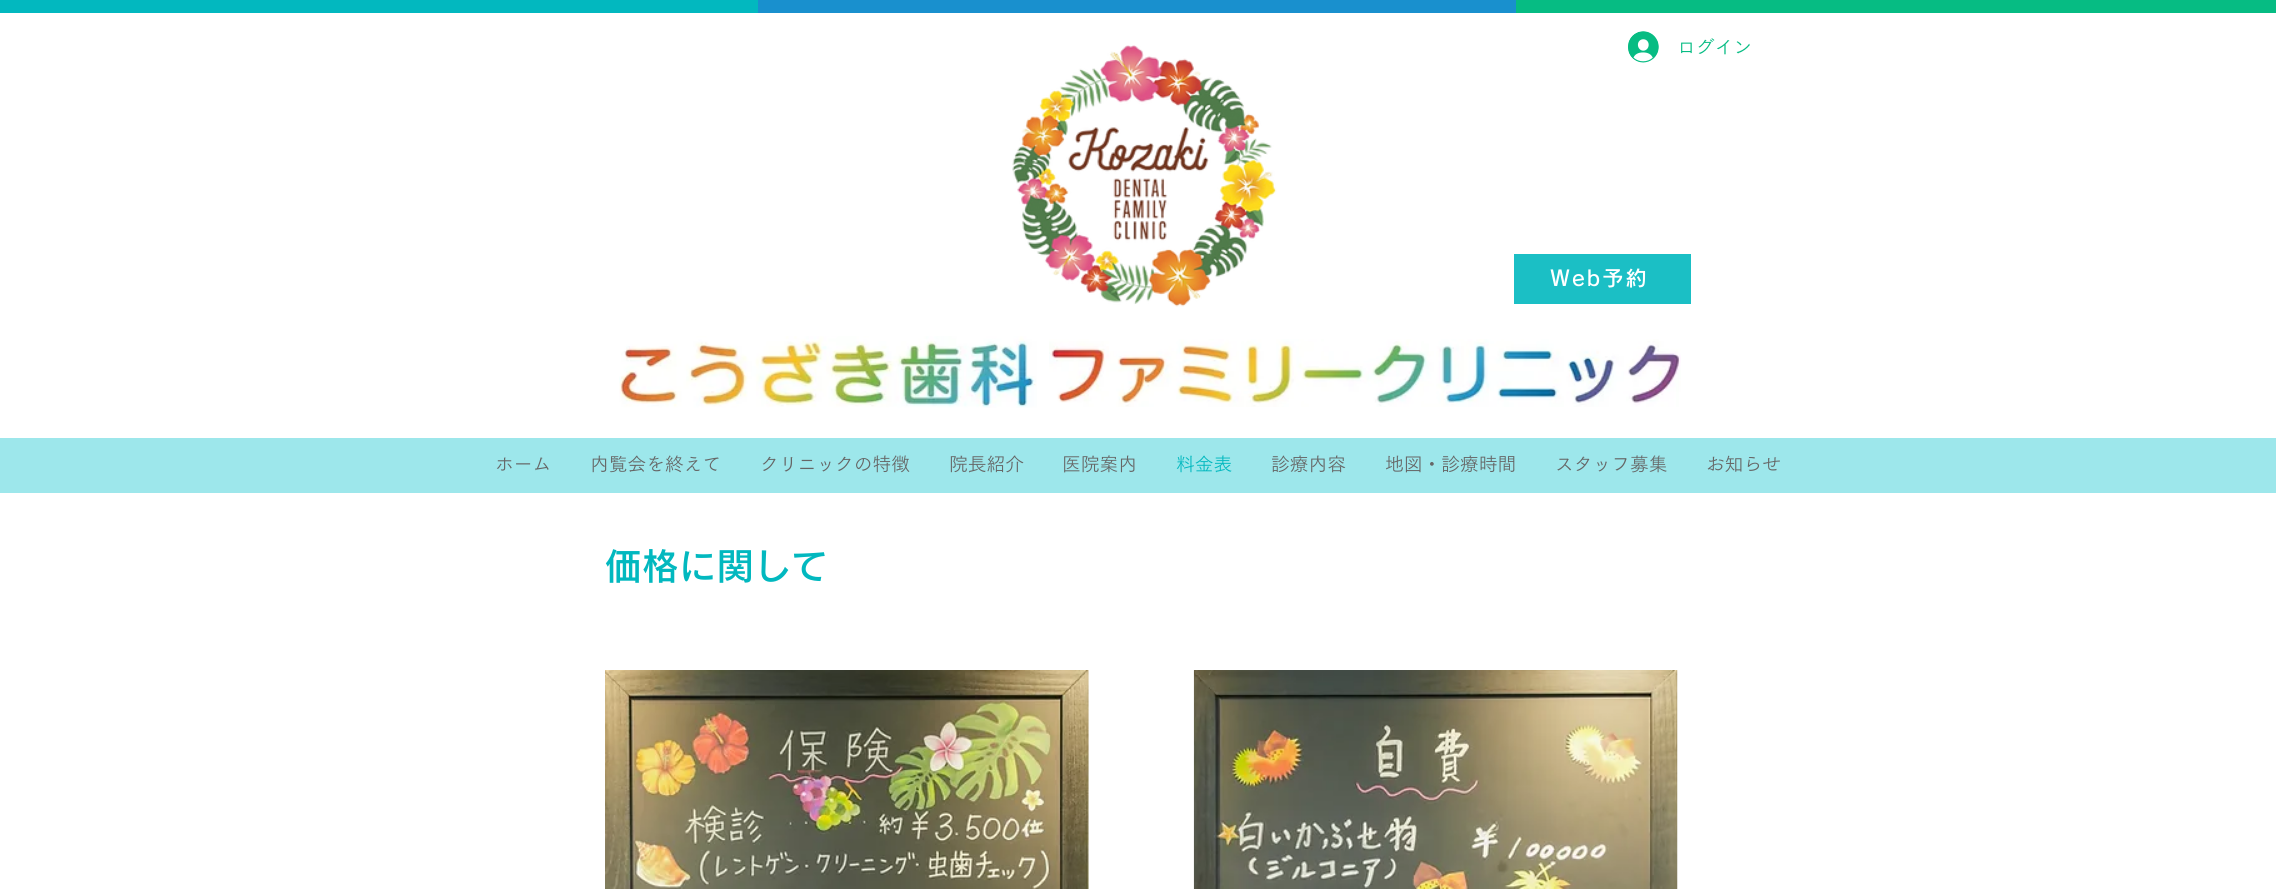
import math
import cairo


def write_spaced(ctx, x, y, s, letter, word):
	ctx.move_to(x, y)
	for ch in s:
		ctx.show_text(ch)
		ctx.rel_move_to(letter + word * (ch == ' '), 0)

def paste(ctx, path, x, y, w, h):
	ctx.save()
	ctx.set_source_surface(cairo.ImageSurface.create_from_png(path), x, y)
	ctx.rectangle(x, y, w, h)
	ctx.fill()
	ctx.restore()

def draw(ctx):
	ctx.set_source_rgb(1, 1, 1)
	ctx.paint()
	paste(ctx, 'media/1.png', 1628, 31, 31, 32)
	ctx.select_font_face('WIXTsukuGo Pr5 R')
	ctx.set_font_size(18.75)
	ctx.set_source_rgb(0.027, 0.737, 0.514)
	ctx.move_to(1677, 54)
	ctx.show_text('ログイン')
	ctx.set_source_rgb(0.008, 0.722, 0.749)
	ctx.rectangle(0, 0, 758, 13)
	ctx.fill()
	ctx.set_source_rgb(0.098, 0.565, 0.808)
	ctx.rectangle(758, 0, 758, 13)
	ctx.fill()
	ctx.set_source_rgb(0.027, 0.737, 0.514)
	ctx.rectangle(1516, 0, 760, 13)
	ctx.fill()
	paste(ctx, 'media/2.png', 1012, 45, 265, 262)
	ctx.set_source_rgb(0.106, 0.749, 0.773)
	ctx.rectangle(1514, 254, 177, 50)
	ctx.fill()
	ctx.select_font_face('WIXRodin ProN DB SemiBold')
	ctx.set_font_size(21.25)
	ctx.set_source_rgb(1, 1, 1)
	write_spaced(ctx, 1550, 286, 'Web予約', 2, 0)
	paste(ctx, 'media/3.png', 619, 336, 418, 72)
	paste(ctx, 'media/4.png', 1049, 339, 632, 68)
	ctx.set_source_rgb(0.616, 0.906, 0.918)
	ctx.rectangle(0, 438, 2276, 55)
	ctx.fill()
	ctx.select_font_face('WIXTsukuGo Pr5 R')
	ctx.set_font_size(18.75)
	ctx.set_source_rgb(0.4, 0.4, 0.4)
	for x, y, s in [
		(495, 471, 'ホーム'),
		(590, 471, '内覧会を終えて'),
		(760, 471, 'クリニックの特徴'),
		(949, 471, '院長紹介'),
		(1062, 471, '医院案内'),
	]:
		ctx.move_to(x, y)
		ctx.show_text(s)
	ctx.set_source_rgb(0.008, 0.722, 0.749)
	ctx.move_to(1176, 471)
	ctx.show_text('料金表')
	ctx.set_source_rgb(0.4, 0.4, 0.4)
	for x, y, s in [
		(1271, 471, '診療内容'),
		(1385, 471, '地図・診療時間'),
		(1555, 471, 'スタッフ募集'),
		(1706, 471, 'お知らせ'),
	]:
		ctx.move_to(x, y)
		ctx.show_text(s)
	ctx.select_font_face('WIXRodin ProN DB SemiBold')
	ctx.set_font_size(37.5)
	ctx.set_source_rgb(0.008, 0.722, 0.749)
	ctx.move_to(604, 580)
	ctx.show_text('価格に関して')
	paste(ctx, 'media/5.png', 605, 670, 484, 219)
	paste(ctx, 'media/6.png', 1193, 670, 485, 219)


surface = cairo.ImageSurface(cairo.FORMAT_RGB24, 2276, 889)
ctx = cairo.Context(surface)
options = cairo.FontOptions()
options.set_hint_metrics(cairo.HINT_METRICS_OFF)
options.set_hint_style(cairo.HINT_STYLE_NONE)
ctx.set_font_options(options)
ctx.set_miter_limit(4)
draw(ctx)
surface.write_to_png('image.png')
